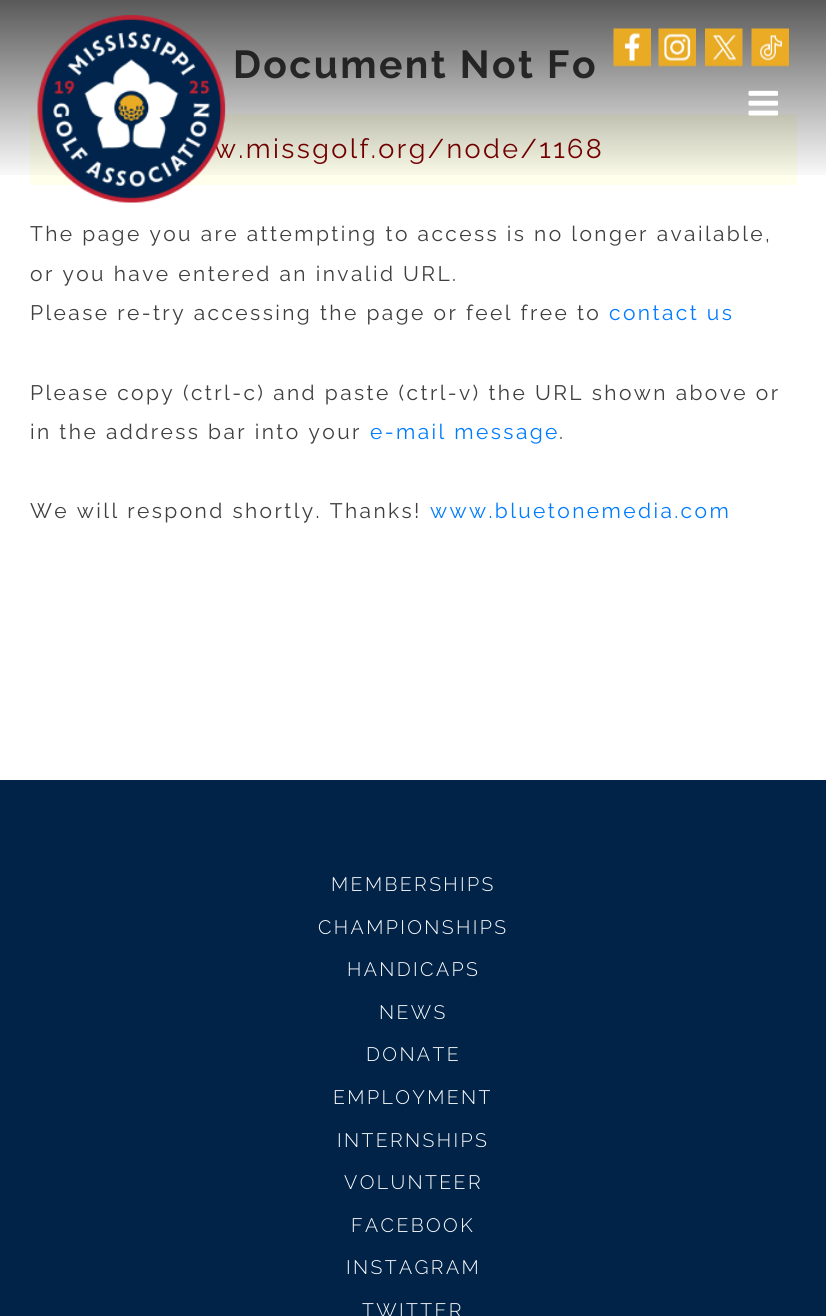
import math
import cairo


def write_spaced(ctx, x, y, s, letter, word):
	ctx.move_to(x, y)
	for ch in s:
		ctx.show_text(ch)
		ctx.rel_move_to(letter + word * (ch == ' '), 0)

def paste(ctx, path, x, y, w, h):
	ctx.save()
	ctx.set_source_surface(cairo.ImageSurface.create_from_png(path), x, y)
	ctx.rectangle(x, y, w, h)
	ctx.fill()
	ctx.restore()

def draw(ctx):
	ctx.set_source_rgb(1, 1, 1)
	ctx.paint()
	ctx.select_font_face('Raleway', cairo.FONT_SLANT_NORMAL, cairo.FONT_WEIGHT_BOLD)
	ctx.set_font_size(39)
	ctx.set_source_rgb(0.247, 0.247, 0.247)
	write_spaced(ctx, 233, 78, 'Document Not Fo', 2.4, 0)
	ctx.set_source_rgb(1, 1, 0.925)
	ctx.rectangle(30, 114, 767, 71)
	ctx.fill()
	ctx.select_font_face('Raleway')
	ctx.set_font_size(27)
	ctx.set_source_rgb(0.502, 0, 0)
	write_spaced(ctx, 214, 158, 'w.missgolf.org/node/1168', 2.4, 0)
	gradient = cairo.LinearGradient(413, 0, 413, 203)
	gradient.add_color_stop_rgba(0, 0, 0, 0, 0.65)
	gradient.add_color_stop_rgba(0.8, 0, 0, 0, 0.07)
	gradient.add_color_stop_rgba(0.89, 0, 0, 0, 0)
	ctx.set_source(gradient)
	ctx.rectangle(0, 0, 826, 175)
	ctx.fill()
	paste(ctx, 'media/1.png', 37, 15, 189, 188)
	paste(ctx, 'media/2.png', 613, 28, 38, 39)
	paste(ctx, 'media/3.png', 658, 28, 38, 39)
	paste(ctx, 'media/4.png', 705, 28, 38, 39)
	paste(ctx, 'media/5.png', 751, 28, 38, 39)
	paste(ctx, 'media/6.png', 748, 90, 31, 26)
	ctx.set_font_size(21)
	ctx.set_source_rgb(0.247, 0.247, 0.247)
	for x, y, s in [
		(30, 241, 'The page you are attempting to access is no longer available,'),
		(30, 281, 'or you have entered an invalid URL.'),
		(30, 320, 'Please re-try accessing the page or feel free to'),
	]:
		write_spaced(ctx, x, y, s, 2.4, 0)
	ctx.set_source_rgb(0, 0.482, 1)
	write_spaced(ctx, 609, 320, 'contact us', 2.4, 0)
	ctx.set_source_rgb(0.247, 0.247, 0.247)
	write_spaced(ctx, 30, 400, 'Please copy (ctrl-c) and paste (ctrl-v) the URL shown above or', 2.4, 0)
	write_spaced(ctx, 30, 439, 'in the address bar into your', 2.4, 0)
	ctx.set_source_rgb(0, 0.482, 1)
	write_spaced(ctx, 370, 439, 'e-mail message', 2.4, 0)
	ctx.set_source_rgb(0.247, 0.247, 0.247)
	write_spaced(ctx, 559, 439, '.', 2.4, 0)
	write_spaced(ctx, 30, 518, 'We will respond shortly. Thanks!', 2.4, 0)
	ctx.set_source_rgb(0, 0.482, 1)
	write_spaced(ctx, 430, 518, 'www.bluetonemedia.com', 2.4, 0)
	ctx.set_source_rgb(0.004, 0.137, 0.282)
	ctx.rectangle(0, 780, 826, 536)
	ctx.fill()
	ctx.select_font_face('Raleway Light')
	ctx.set_font_size(19.5)
	ctx.set_source_rgb(1, 1, 1)
	for x, y, s in [
		(331, 891, 'MEMBERSHIPS'),
		(318, 934, 'CHAMPIONSHIPS'),
		(347, 976, 'HANDICAPS'),
		(379, 1019, 'NEWS'),
		(366, 1061, 'DONATE'),
		(333, 1104, 'EMPLOYMENT'),
		(337, 1147, 'INTERNSHIPS'),
		(344, 1189, 'VOLUNTEER'),
		(351, 1232, 'FACEBOOK'),
		(346, 1274, 'INSTAGRAM'),
		(362, 1317, 'TWITTER'),
	]:
		write_spaced(ctx, x, y, s, 2.4, 0)


surface = cairo.ImageSurface(cairo.FORMAT_RGB24, 826, 1316)
ctx = cairo.Context(surface)
options = cairo.FontOptions()
options.set_hint_metrics(cairo.HINT_METRICS_OFF)
options.set_hint_style(cairo.HINT_STYLE_NONE)
ctx.set_font_options(options)
ctx.set_miter_limit(4)
draw(ctx)
surface.write_to_png('image.png')
